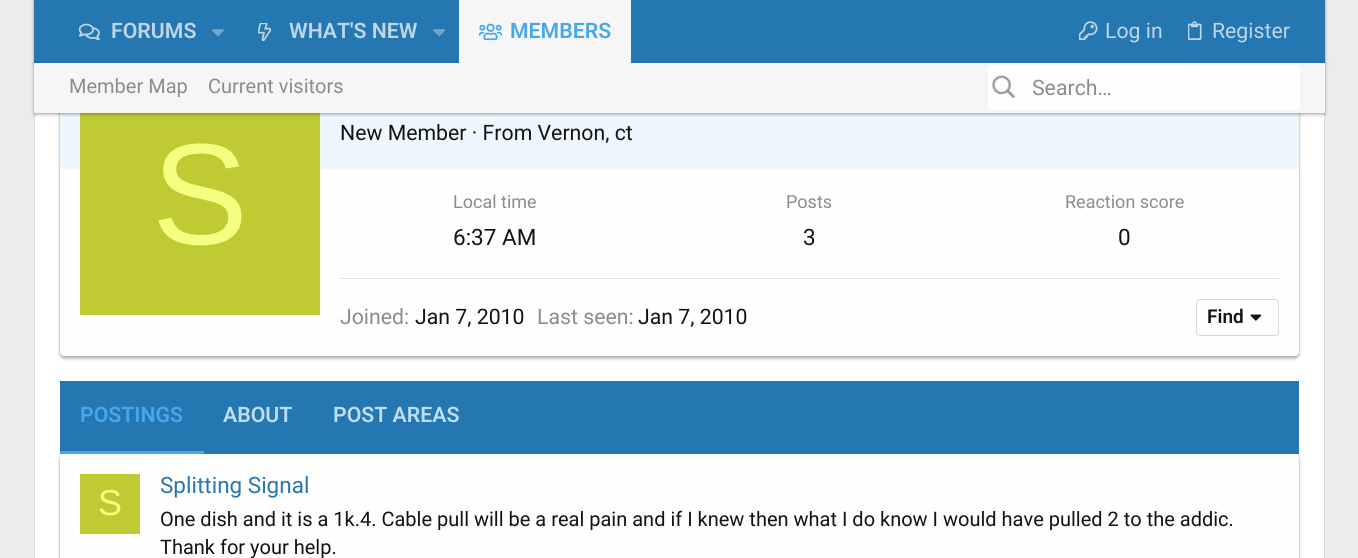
import math
import cairo


def round_path(ctx, x, y, w, h, r):
	ctx.new_sub_path()
	for i, (u, v) in enumerate([(x + w - r, y + h - r), (x + r, y + h - r), (x + r, y + r), (x + w - r, y + r)]):
		ctx.arc(u, v, r, i * math.pi / 2, (i + 1) * math.pi / 2)
	ctx.close_path()

def blur_box(ctx, x, y, w, h, r, blur, alpha):
	ctx.push_group_with_content(cairo.CONTENT_ALPHA)
	ctx.set_operator(cairo.OPERATOR_SOURCE)
	for i in range(15, -16, -2):
		e = blur * i / 6
		if min(w, h) + 2 * e > 0:
			ctx.set_source_rgba(0, 0, 0, alpha * math.erfc((i - 1) / 8.5) / 2)
			round_path(ctx, x - e, y - e, w + 2 * e, h + 2 * e, max(0, min(r + e + blur * .6, min(w, h) / 2 + e)))
			ctx.fill()
	ctx.mask(ctx.pop_group())

def paste(ctx, path, x, y, w, h):
	ctx.save()
	ctx.set_source_surface(cairo.ImageSurface.create_from_png(path), x, y)
	ctx.rectangle(x, y, w, h)
	ctx.fill()
	ctx.restore()

def draw(ctx):
	ctx.set_source_rgb(0.925, 0.925, 0.925)
	ctx.paint()
	ctx.set_source_rgb(1, 1, 1)
	ctx.rectangle(35, 113, 1289, 445)
	ctx.fill()
	ctx.rectangle(34.5, 29.5, 1290, 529)
	ctx.set_source_rgb(0.847, 0.847, 0.847)
	ctx.set_line_width(1)
	ctx.stroke()
	ctx.set_source_rgb(0, 0, 0)
	blur_box(ctx, 60, 56, 1239, 302, 4, 2, 0.2)
	blur_box(ctx, 60, 58, 1239, 301, 4, 1, 0.12)
	blur_box(ctx, 60, 55, 1239, 301, 4, 1, 0.14)
	ctx.set_source_rgb(0.996, 0.996, 0.996)
	round_path(ctx, 60, 55, 1239, 301, 4)
	ctx.fill()
	ctx.set_source_rgb(0, 0, 0)
	blur_box(ctx, 34, 1, 1291, 63, 0, 2, 0.2)
	blur_box(ctx, 34, 3, 1291, 62, 0, 1, 0.12)
	blur_box(ctx, 34, 0, 1291, 63, 0, 1, 0.14)
	ctx.set_source_rgb(0.145, 0.467, 0.694)
	ctx.rectangle(34, 0, 1291, 63)
	ctx.fill()
	paste(ctx, 'media/1.png', 79, 23, 21, 18)
	ctx.select_font_face('Roboto SemiBold')
	ctx.set_font_size(21.25)
	ctx.set_source_rgb(0.745, 0.839, 0.91)
	ctx.move_to(111, 38)
	ctx.show_text('FORUMS')
	paste(ctx, 'media/2.png', 211, 29, 13, 8)
	paste(ctx, 'media/3.png', 258, 23, 13, 18)
	ctx.move_to(289, 38)
	ctx.show_text('WHAT\'S NEW')
	paste(ctx, 'media/4.png', 433, 29, 13, 8)
	ctx.set_source_rgb(0.929, 0.965, 0.992)
	ctx.rectangle(60, 113, 1239, 56)
	ctx.fill()
	ctx.set_source_rgb(0.753, 0.792, 0.2)
	ctx.rectangle(80, 113, 240, 202)
	ctx.fill()
	ctx.set_source_rgb(0, 0, 0)
	blur_box(ctx, 34, 64, 1291, 50, 0, 2, 0.2)
	blur_box(ctx, 34, 65, 1291, 50, 0, 1, 0.12)
	blur_box(ctx, 34, 63, 1291, 50, 0, 1, 0.14)
	ctx.set_source_rgb(0.961, 0.961, 0.961)
	ctx.rectangle(459, 0, 172, 63)
	ctx.fill()
	paste(ctx, 'media/5.png', 479, 23, 24, 18)
	ctx.set_source_rgb(0.278, 0.655, 0.922)
	ctx.move_to(510, 38)
	ctx.show_text('MEMBERS')
	paste(ctx, 'media/6.png', 1079, 21, 19, 19)
	ctx.select_font_face('Roboto')
	ctx.set_source_rgb(0.745, 0.839, 0.91)
	ctx.move_to(1105, 38)
	ctx.show_text('Log in')
	paste(ctx, 'media/7.png', 1188, 21, 14, 19)
	ctx.move_to(1212, 38)
	ctx.show_text('Register')
	ctx.set_source_rgb(0.961, 0.961, 0.961)
	ctx.rectangle(34, 63, 1291, 50)
	ctx.fill()
	ctx.set_font_size(20)
	ctx.set_source_rgb(0.549, 0.549, 0.549)
	ctx.move_to(69, 93)
	ctx.show_text('Member Map')
	ctx.move_to(208, 93)
	ctx.show_text('Current visitors')
	ctx.set_source_rgb(0.996, 0.996, 0.996)
	round_path(ctx, 988, 65, 312, 45, 4)
	ctx.fill()
	paste(ctx, 'media/8.png', 992, 75, 23, 23)
	ctx.set_font_size(21.25)
	ctx.set_source_rgb(0.549, 0.549, 0.549)
	ctx.move_to(1032, 95)
	ctx.show_text('Search…')
	ctx.set_source_rgb(0.078, 0.078, 0.078)
	ctx.move_to(340, 140)
	ctx.show_text('New Member · From Vernon, ct')
	ctx.select_font_face('Liberation Sans')
	ctx.set_font_size(144)
	ctx.set_source_rgb(0.957, 1, 0.506)
	ctx.move_to(152, 244)
	ctx.show_text('S')
	ctx.select_font_face('Roboto')
	ctx.set_font_size(18)
	ctx.set_source_rgb(0.549, 0.549, 0.549)
	ctx.move_to(453, 208)
	ctx.show_text('Local time')
	ctx.set_font_size(22.5)
	ctx.set_source_rgb(0.078, 0.078, 0.078)
	ctx.move_to(453, 245)
	ctx.show_text('6:37 AM')
	ctx.set_font_size(18)
	ctx.set_source_rgb(0.549, 0.549, 0.549)
	ctx.move_to(786, 208)
	ctx.show_text('Posts')
	ctx.set_font_size(22.5)
	ctx.set_source_rgb(0.078, 0.078, 0.078)
	ctx.move_to(803, 245)
	ctx.show_text('3')
	ctx.set_font_size(18)
	ctx.set_source_rgb(0.549, 0.549, 0.549)
	ctx.move_to(1065, 208)
	ctx.show_text('Reaction score')
	ctx.set_font_size(22.5)
	ctx.set_source_rgb(0.078, 0.078, 0.078)
	ctx.move_to(1118, 245)
	ctx.show_text('0')
	ctx.set_source_rgb(0.875, 0.875, 0.875)
	ctx.rectangle(340, 278, 939, 1)
	ctx.fill()
	ctx.set_font_size(21.25)
	ctx.set_source_rgb(0.549, 0.549, 0.549)
	ctx.move_to(340, 324)
	ctx.show_text('Joined:')
	ctx.set_source_rgb(0.078, 0.078, 0.078)
	ctx.move_to(415, 324)
	ctx.show_text('Jan 7, 2010')
	ctx.set_source_rgb(0.549, 0.549, 0.549)
	ctx.move_to(537, 324)
	ctx.show_text('Last seen:')
	ctx.set_source_rgb(0.078, 0.078, 0.078)
	ctx.move_to(638, 324)
	ctx.show_text('Jan 7, 2010')
	round_path(ctx, 1196.5, 299.5, 82, 36, 3.5)
	ctx.set_source_rgb(0.847, 0.847, 0.847)
	ctx.stroke()
	ctx.select_font_face('Roboto SemiBold')
	ctx.set_font_size(19)
	ctx.set_source_rgb(0.078, 0.078, 0.078)
	ctx.move_to(1207, 323)
	ctx.show_text('Find')
	paste(ctx, 'media/9.png', 1250, 314, 12, 7)
	ctx.set_source_rgb(0, 0, 0)
	blur_box(ctx, 60, 455, 1239, 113, 4, 2, 0.2)
	blur_box(ctx, 60, 456, 1239, 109, 4, 1, 0.12)
	blur_box(ctx, 60, 454, 1239, 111, 4, 1, 0.14)
	ctx.set_source_rgb(0.145, 0.467, 0.694)
	ctx.rectangle(60, 381, 1239, 73)
	ctx.fill()
	ctx.set_source_rgb(0.278, 0.655, 0.922)
	ctx.rectangle(60, 451, 144, 3)
	ctx.fill()
	ctx.set_font_size(21.25)
	ctx.move_to(80, 422)
	ctx.show_text('POSTINGS')
	ctx.set_source_rgb(0.737, 0.871, 0.961)
	ctx.move_to(223, 422)
	ctx.show_text('ABOUT')
	ctx.move_to(333, 422)
	ctx.show_text('POST AREAS')
	ctx.set_source_rgb(0.996, 0.996, 0.996)
	round_path(ctx, 60, 454, 1239, 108, 4)
	ctx.fill()
	ctx.set_source_rgb(0.753, 0.792, 0.2)
	ctx.rectangle(80, 474, 60, 60)
	ctx.fill()
	ctx.select_font_face('Liberation Sans')
	ctx.set_font_size(36)
	ctx.set_source_rgb(0.957, 1, 0.506)
	ctx.move_to(98, 515)
	ctx.show_text('S')
	ctx.select_font_face('Roboto')
	ctx.set_font_size(22.5)
	ctx.set_source_rgb(0.145, 0.467, 0.694)
	ctx.move_to(160, 493)
	ctx.show_text('Splitting Signal')
	ctx.set_font_size(20)
	ctx.set_source_rgb(0.078, 0.078, 0.078)
	ctx.move_to(160, 526)
	ctx.show_text('One dish and it is a 1k.4. Cable pull will be a real pain and if I knew then what I do know I would have pulled 2 to the addic.')
	ctx.move_to(160, 554)
	ctx.show_text('Thank for your help.')


surface = cairo.ImageSurface(cairo.FORMAT_RGB24, 1358, 558)
ctx = cairo.Context(surface)
options = cairo.FontOptions()
options.set_hint_metrics(cairo.HINT_METRICS_OFF)
options.set_hint_style(cairo.HINT_STYLE_NONE)
ctx.set_font_options(options)
ctx.set_miter_limit(4)
draw(ctx)
surface.write_to_png('image.png')
